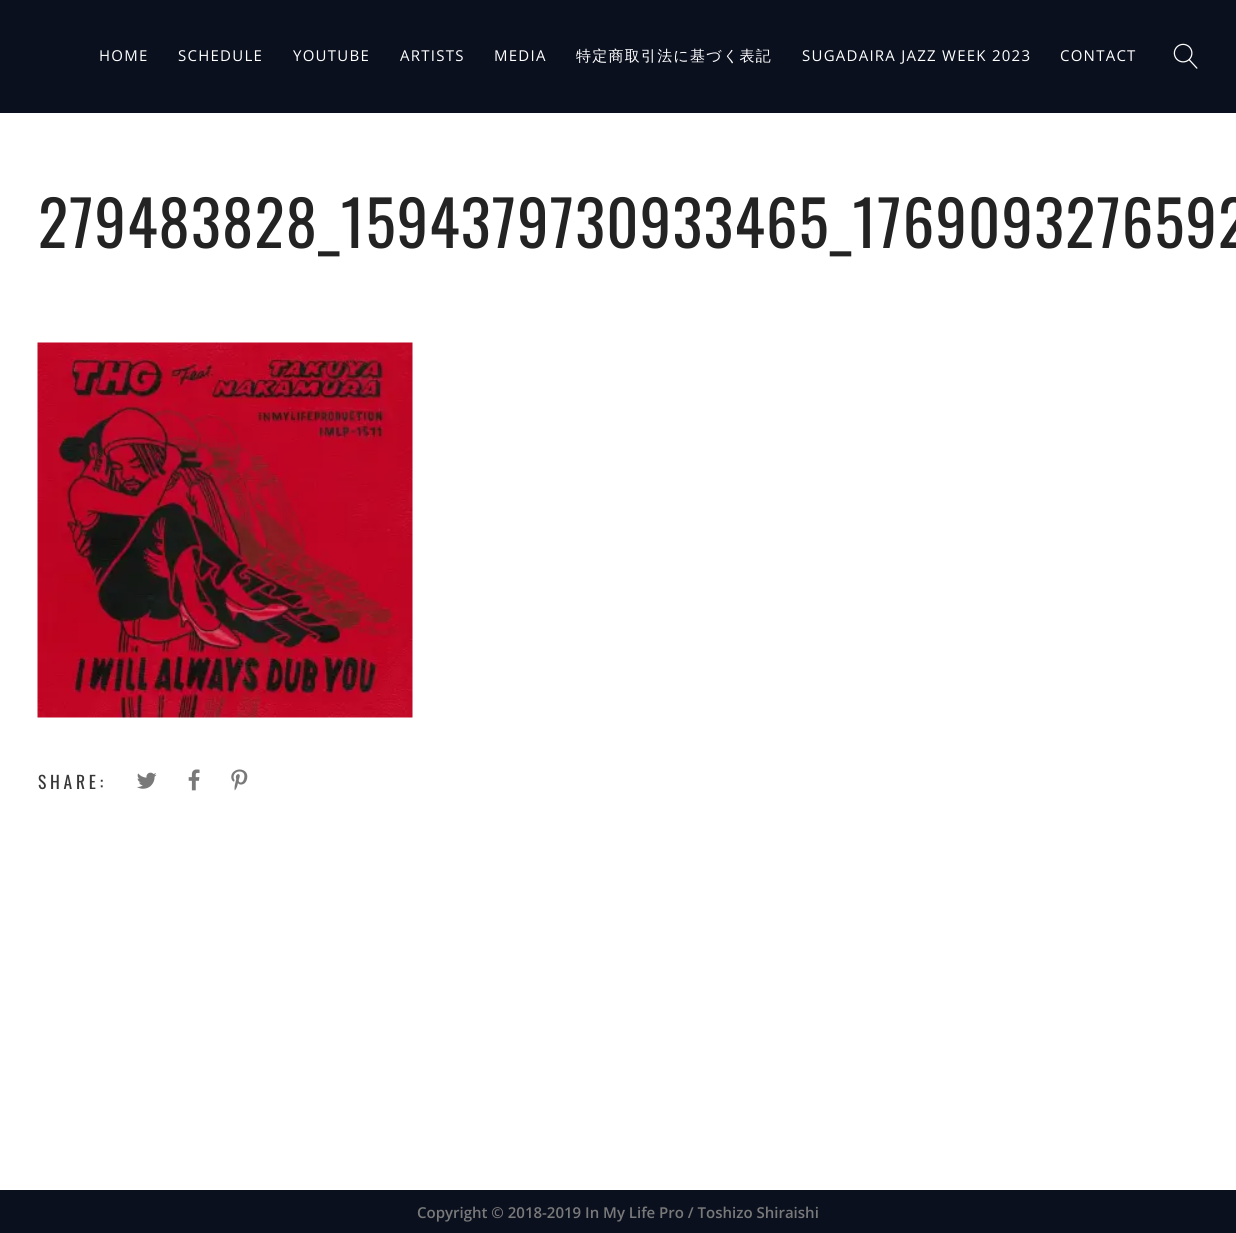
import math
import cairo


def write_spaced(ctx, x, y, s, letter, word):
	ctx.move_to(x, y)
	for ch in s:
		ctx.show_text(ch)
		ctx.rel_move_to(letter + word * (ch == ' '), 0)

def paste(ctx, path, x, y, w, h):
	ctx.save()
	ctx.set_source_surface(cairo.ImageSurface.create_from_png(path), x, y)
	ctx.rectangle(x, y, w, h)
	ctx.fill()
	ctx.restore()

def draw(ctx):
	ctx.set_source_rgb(1, 1, 1)
	ctx.paint()
	ctx.set_source_rgb(0.043, 0.063, 0.122)
	ctx.rectangle(0, 0, 1236, 113)
	ctx.fill()
	ctx.select_font_face('Open Sans')
	ctx.set_font_size(15)
	ctx.set_source_rgb(1, 1, 1)
	for x, y, s in [
		(99, 61, 'HOME'),
		(178, 61, 'SCHEDULE'),
		(293, 61, 'YOUTUBE'),
		(400, 61, 'ARTISTS'),
		(494, 61, 'MEDIA'),
	]:
		write_spaced(ctx, x, y, s, 1.25, 0)
	ctx.select_font_face('WenQuanYi Zen Hei Medium')
	write_spaced(ctx, 576, 61, '特定商取引法に基づく表記', 1.25, 0)
	ctx.select_font_face('Open Sans')
	write_spaced(ctx, 802, 61, 'SUGADAIRA JAZZ WEEK 2023', 1.25, 0)
	write_spaced(ctx, 1060, 61, 'CONTACT', 1.25, 0)
	paste(ctx, 'media/1.png', 1173, 43, 25, 26)
	ctx.select_font_face('Oswald')
	ctx.set_font_size(62.5)
	ctx.set_source_rgb(0.137, 0.137, 0.137)
	write_spaced(ctx, 38, 248, '279483828_1594379730933465_1769093276592', 1.25, 0)
	paste(ctx, 'media/2.png', 37, 342, 376, 376)
	ctx.set_font_size(17.5)
	ctx.set_source_rgb(0.22, 0.22, 0.22)
	write_spaced(ctx, 38, 789, 'SHARE:', 3.75, 0)
	paste(ctx, 'media/3.png', 137, 772, 20, 17)
	paste(ctx, 'media/4.png', 188, 769, 12, 22)
	paste(ctx, 'media/5.png', 231, 769, 17, 22)
	ctx.set_source_rgb(0.043, 0.063, 0.122)
	ctx.rectangle(0, 1190, 1236, 43)
	ctx.fill()
	ctx.select_font_face('Open Sans SemiBold')
	ctx.set_font_size(15)
	ctx.set_source_rgb(0.475, 0.475, 0.475)
	ctx.move_to(417, 1218)
	ctx.show_text('Copyright © 2018-2019 In My Life Pro / Toshizo Shiraishi')


surface = cairo.ImageSurface(cairo.FORMAT_RGB24, 1236, 1233)
ctx = cairo.Context(surface)
options = cairo.FontOptions()
options.set_hint_metrics(cairo.HINT_METRICS_OFF)
options.set_hint_style(cairo.HINT_STYLE_NONE)
ctx.set_font_options(options)
ctx.set_miter_limit(4)
draw(ctx)
surface.write_to_png('image.png')
